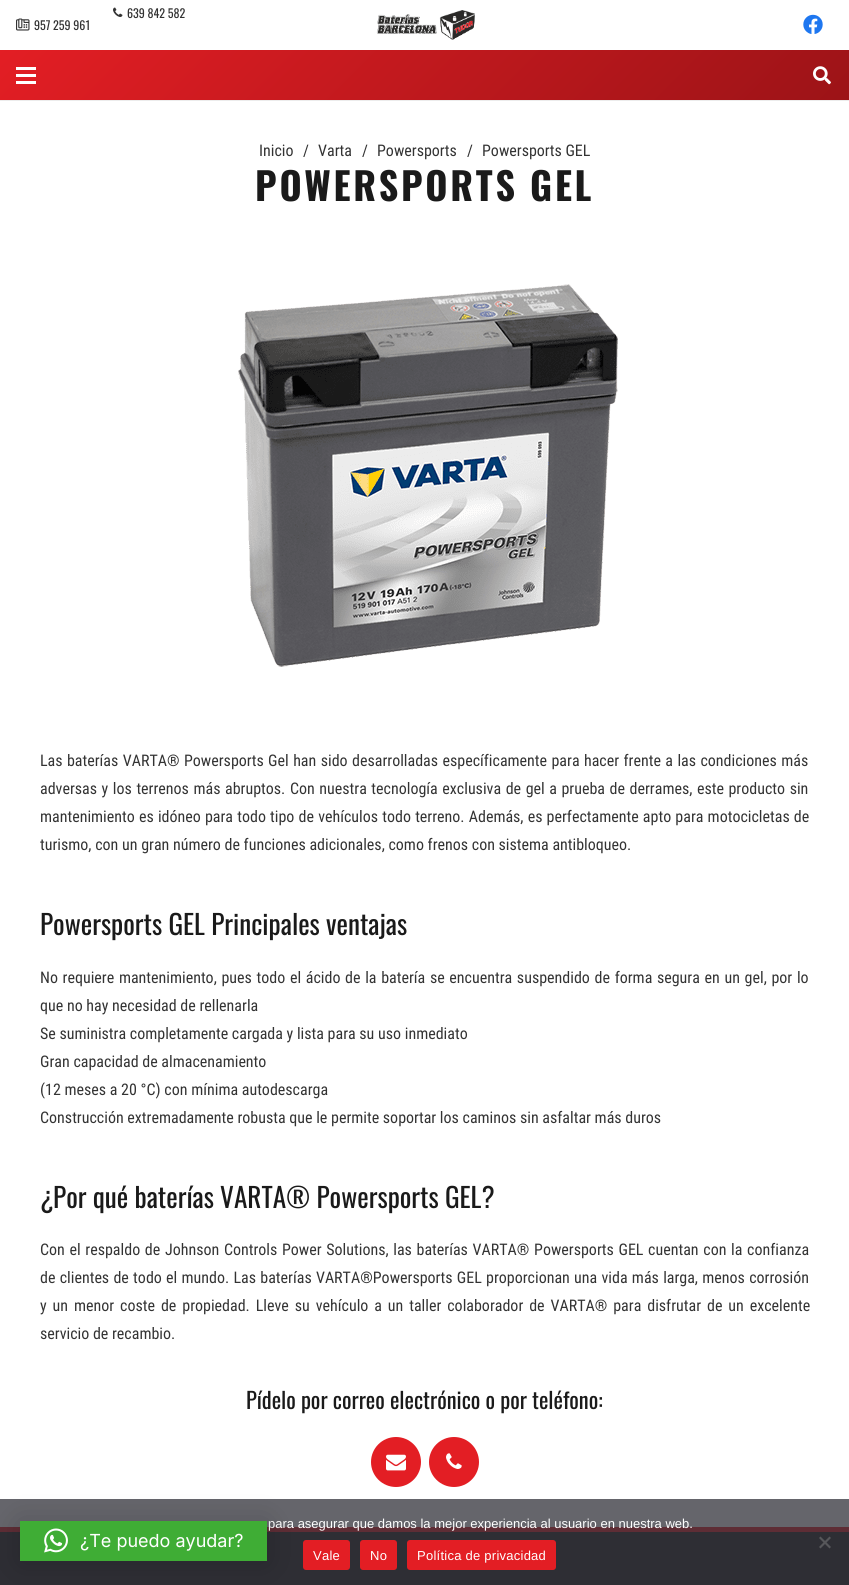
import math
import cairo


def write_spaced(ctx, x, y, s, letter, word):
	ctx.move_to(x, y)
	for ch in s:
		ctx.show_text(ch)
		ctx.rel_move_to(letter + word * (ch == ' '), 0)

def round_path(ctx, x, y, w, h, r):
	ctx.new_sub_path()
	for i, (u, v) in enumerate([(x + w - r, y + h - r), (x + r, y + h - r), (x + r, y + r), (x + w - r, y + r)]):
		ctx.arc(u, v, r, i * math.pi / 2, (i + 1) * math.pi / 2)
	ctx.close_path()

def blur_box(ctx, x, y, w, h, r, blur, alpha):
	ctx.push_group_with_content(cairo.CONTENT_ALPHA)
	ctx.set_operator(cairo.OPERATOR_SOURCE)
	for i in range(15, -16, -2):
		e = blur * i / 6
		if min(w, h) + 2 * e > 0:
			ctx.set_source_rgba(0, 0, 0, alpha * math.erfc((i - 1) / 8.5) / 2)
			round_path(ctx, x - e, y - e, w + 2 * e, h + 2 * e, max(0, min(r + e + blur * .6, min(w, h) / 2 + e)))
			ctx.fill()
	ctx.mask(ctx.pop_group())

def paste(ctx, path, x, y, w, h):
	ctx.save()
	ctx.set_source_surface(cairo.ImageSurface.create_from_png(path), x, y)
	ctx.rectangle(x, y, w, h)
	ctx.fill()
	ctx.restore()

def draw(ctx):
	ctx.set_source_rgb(1, 1, 1)
	ctx.paint()
	ctx.set_source_rgb(0.396, 0.396, 0.42)
	ctx.rectangle(0, 1499, 849, 28)
	ctx.fill()
	paste(ctx, 'media/1.png', 113, 7, 10, 10)
	ctx.select_font_face('Oswald')
	ctx.set_font_size(12)
	ctx.set_source_rgb(0.2, 0.2, 0.2)
	ctx.move_to(127, 18)
	ctx.show_text('639 842 582')
	paste(ctx, 'media/2.png', 16, 18, 14, 13)
	ctx.move_to(34, 30)
	ctx.show_text('957 259 961')
	paste(ctx, 'media/3.png', 376, 10, 99, 30)
	paste(ctx, 'media/4.png', 803, 14, 20, 20)
	ctx.set_source_rgb(0.922, 0.922, 0.922)
	ctx.rectangle(0, 100, 849, 1)
	ctx.fill()
	gradient = cairo.LinearGradient(200, -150, 649, 300)
	gradient.add_color_stop_rgba(0, 0.89, 0.118, 0.141, 1)
	gradient.add_color_stop_rgba(1, 0.612, 0.075, 0.09, 1)
	ctx.set_source(gradient)
	ctx.rectangle(0, 50, 849, 50)
	ctx.fill()
	ctx.set_source_rgb(1, 1, 1)
	ctx.rectangle(16, 74, 20, 3)
	ctx.rectangle(16, 67, 20, 3)
	ctx.rectangle(16, 81, 20, 3)
	ctx.fill()
	paste(ctx, 'media/5.png', 813, 66, 18, 19)
	ctx.select_font_face('Roboto Condensed')
	ctx.set_font_size(16)
	ctx.set_source_rgb(0.2, 0.2, 0.2)
	for x, y, s in [
		(259, 156, 'Inicio'),
		(303, 156, '/'),
		(318, 156, 'Varta'),
		(362, 156, '/'),
		(377, 156, 'Powersports'),
		(467, 156, '/'),
		(482, 156, 'Powersports GEL'),
	]:
		ctx.move_to(x, y)
		ctx.show_text(s)
	ctx.select_font_face('Oswald', cairo.FONT_SLANT_NORMAL, cairo.FONT_WEIGHT_BOLD)
	ctx.set_font_size(38)
	ctx.set_source_rgb(0.102, 0.102, 0.102)
	write_spaced(ctx, 255, 201, 'POWERSPORTS GEL', 2.7, 0)
	paste(ctx, 'media/6.png', 238, 284, 380, 383)
	ctx.select_font_face('Roboto Condensed')
	ctx.set_font_size(16)
	ctx.set_source_rgb(0.2, 0.2, 0.2)
	write_spaced(ctx, 40, 766, 'Las baterías VARTA® Powersports Gel han sido desarrolladas específicamente para hacer frente a las condiciones más', 0, 0.75)
	write_spaced(ctx, 40, 794, 'adversas y los terrenos más abruptos. Con nuestra tecnología exclusiva de gel a prueba de derrames, este producto sin', 0, 0.9)
	write_spaced(ctx, 40, 822, 'mantenimiento es idóneo para todo tipo de vehículos todo terreno. Además, es perfectamente apto para motocicletas de', 0, 0.5)
	ctx.move_to(40, 850)
	ctx.show_text('turismo, con un gran número de funciones adicionales, como frenos con sistema antibloqueo.')
	ctx.select_font_face('Oswald')
	ctx.set_font_size(27.25)
	ctx.set_source_rgb(0.102, 0.102, 0.102)
	ctx.move_to(40, 935)
	ctx.show_text('Powersports GEL Principales ventajas')
	ctx.select_font_face('Roboto Condensed')
	ctx.set_font_size(16)
	ctx.set_source_rgb(0.2, 0.2, 0.2)
	write_spaced(ctx, 40, 983, 'No requiere mantenimiento, pues todo el ácido de la batería se encuentra suspendido de forma segura en un gel, por lo', 0, 1)
	for x, y, s in [
		(40, 1011, 'que no hay necesidad de rellenarla'),
		(40, 1039, 'Se suministra completamente cargada y lista para su uso inmediato'),
		(40, 1067, 'Gran capacidad de almacenamiento'),
		(40, 1095, '(12 meses a 20 °C) con mínima autodescarga'),
		(40, 1123, 'Construcción extremadamente robusta que le permite soportar los caminos sin asfaltar más duros'),
	]:
		ctx.move_to(x, y)
		ctx.show_text(s)
	ctx.select_font_face('Oswald')
	ctx.set_font_size(27.25)
	ctx.set_source_rgb(0.102, 0.102, 0.102)
	ctx.move_to(40, 1208)
	ctx.show_text('¿Por qué baterías VARTA® Powersports GEL?')
	ctx.select_font_face('Roboto Condensed')
	ctx.set_font_size(16)
	ctx.set_source_rgb(0.2, 0.2, 0.2)
	write_spaced(ctx, 40, 1255, 'Con el respaldo de Johnson Controls Power Solutions, las baterías VARTA® Powersports GEL cuentan con la confianza', 0, 1)
	write_spaced(ctx, 40, 1283, 'de clientes de todo el mundo. Las baterías VARTA®Powersports GEL proporcionan una vida más larga, menos corrosión', 0, 0.6)
	write_spaced(ctx, 40, 1311, 'y un menor coste de propiedad. Lleve su vehículo a un taller colaborador de VARTA® para disfrutar de un excelente', 0, 2.25)
	ctx.move_to(40, 1339)
	ctx.show_text('servicio de recambio.')
	ctx.select_font_face('Oswald')
	ctx.set_font_size(22.4)
	ctx.set_source_rgb(0.102, 0.102, 0.102)
	ctx.move_to(246, 1409)
	ctx.show_text('Pídelo por correo electrónico o por teléfono:')
	ctx.set_source_rgb(0.89, 0.118, 0.141)
	ctx.new_path()
	ctx.arc(396, 1462, 25, 0, 2 * math.pi)
	ctx.fill()
	paste(ctx, 'media/7.png', 386, 1454, 20, 17)
	ctx.arc(454, 1462, 25, 0, 2 * math.pi)
	ctx.fill()
	paste(ctx, 'media/8.png', 446, 1453, 16, 16)
	ctx.set_source_rgb(0.369, 0.176, 0.208)
	ctx.rectangle(0, 1527, 849, 5)
	ctx.fill()
	ctx.select_font_face('Liberation Sans')
	ctx.set_font_size(13)
	ctx.set_source_rgb(1, 1, 1)
	ctx.move_to(268, 1528)
	ctx.show_text('para asegurar que damos la mejor experiencia al usuario en nuestra web.')
	ctx.set_source_rgb(0.18, 0.18, 0.204)
	ctx.rectangle(0, 1532, 849, 53)
	ctx.fill()
	ctx.set_source_rgb(0.341, 0.341, 0.353)
	ctx.new_path()
	ctx.move_to(829.5, 1536.5)
	ctx.line_to(831, 1538)
	ctx.line_to(820.5, 1548.5)
	ctx.line_to(819, 1547)
	ctx.close_path()
	ctx.fill()
	ctx.new_path()
	ctx.move_to(819, 1538)
	ctx.line_to(820.5, 1536.5)
	ctx.line_to(831, 1547)
	ctx.line_to(829.5, 1548.5)
	ctx.close_path()
	ctx.fill()
	ctx.set_source_rgb(0.89, 0.118, 0.141)
	round_path(ctx, 303, 1540, 47, 30, 3)
	ctx.fill()
	ctx.set_source_rgb(1, 1, 1)
	write_spaced(ctx, 313, 1560, 'Vale', 0.25, 0)
	ctx.set_source_rgb(0.89, 0.118, 0.141)
	round_path(ctx, 360, 1540, 37, 30, 3)
	ctx.fill()
	ctx.set_source_rgb(1, 1, 1)
	write_spaced(ctx, 370, 1560, 'No', 0.25, 0)
	ctx.set_source_rgb(0.89, 0.118, 0.141)
	round_path(ctx, 407, 1540, 149, 30, 3)
	ctx.fill()
	ctx.set_source_rgb(1, 1, 1)
	write_spaced(ctx, 417, 1560, 'Política de privacidad', 0.25, 0)
	ctx.set_source_rgb(0, 0, 0)
	blur_box(ctx, 20, 1523, 247, 40, 0, 16, 0.16)
	ctx.set_source_rgb(0.247, 0.678, 0.208)
	ctx.rectangle(20, 1521, 247, 40)
	ctx.fill()
	paste(ctx, 'media/9.png', 44, 1528, 24, 25)
	ctx.select_font_face('Inter')
	ctx.set_font_size(18)
	ctx.set_source_rgb(1, 1, 1)
	ctx.move_to(80, 1547)
	ctx.show_text('¿Te puedo ayudar?')


surface = cairo.ImageSurface(cairo.FORMAT_RGB24, 849, 1585)
ctx = cairo.Context(surface)
options = cairo.FontOptions()
options.set_hint_metrics(cairo.HINT_METRICS_OFF)
options.set_hint_style(cairo.HINT_STYLE_NONE)
ctx.set_font_options(options)
ctx.set_miter_limit(4)
draw(ctx)
surface.write_to_png('image.png')
